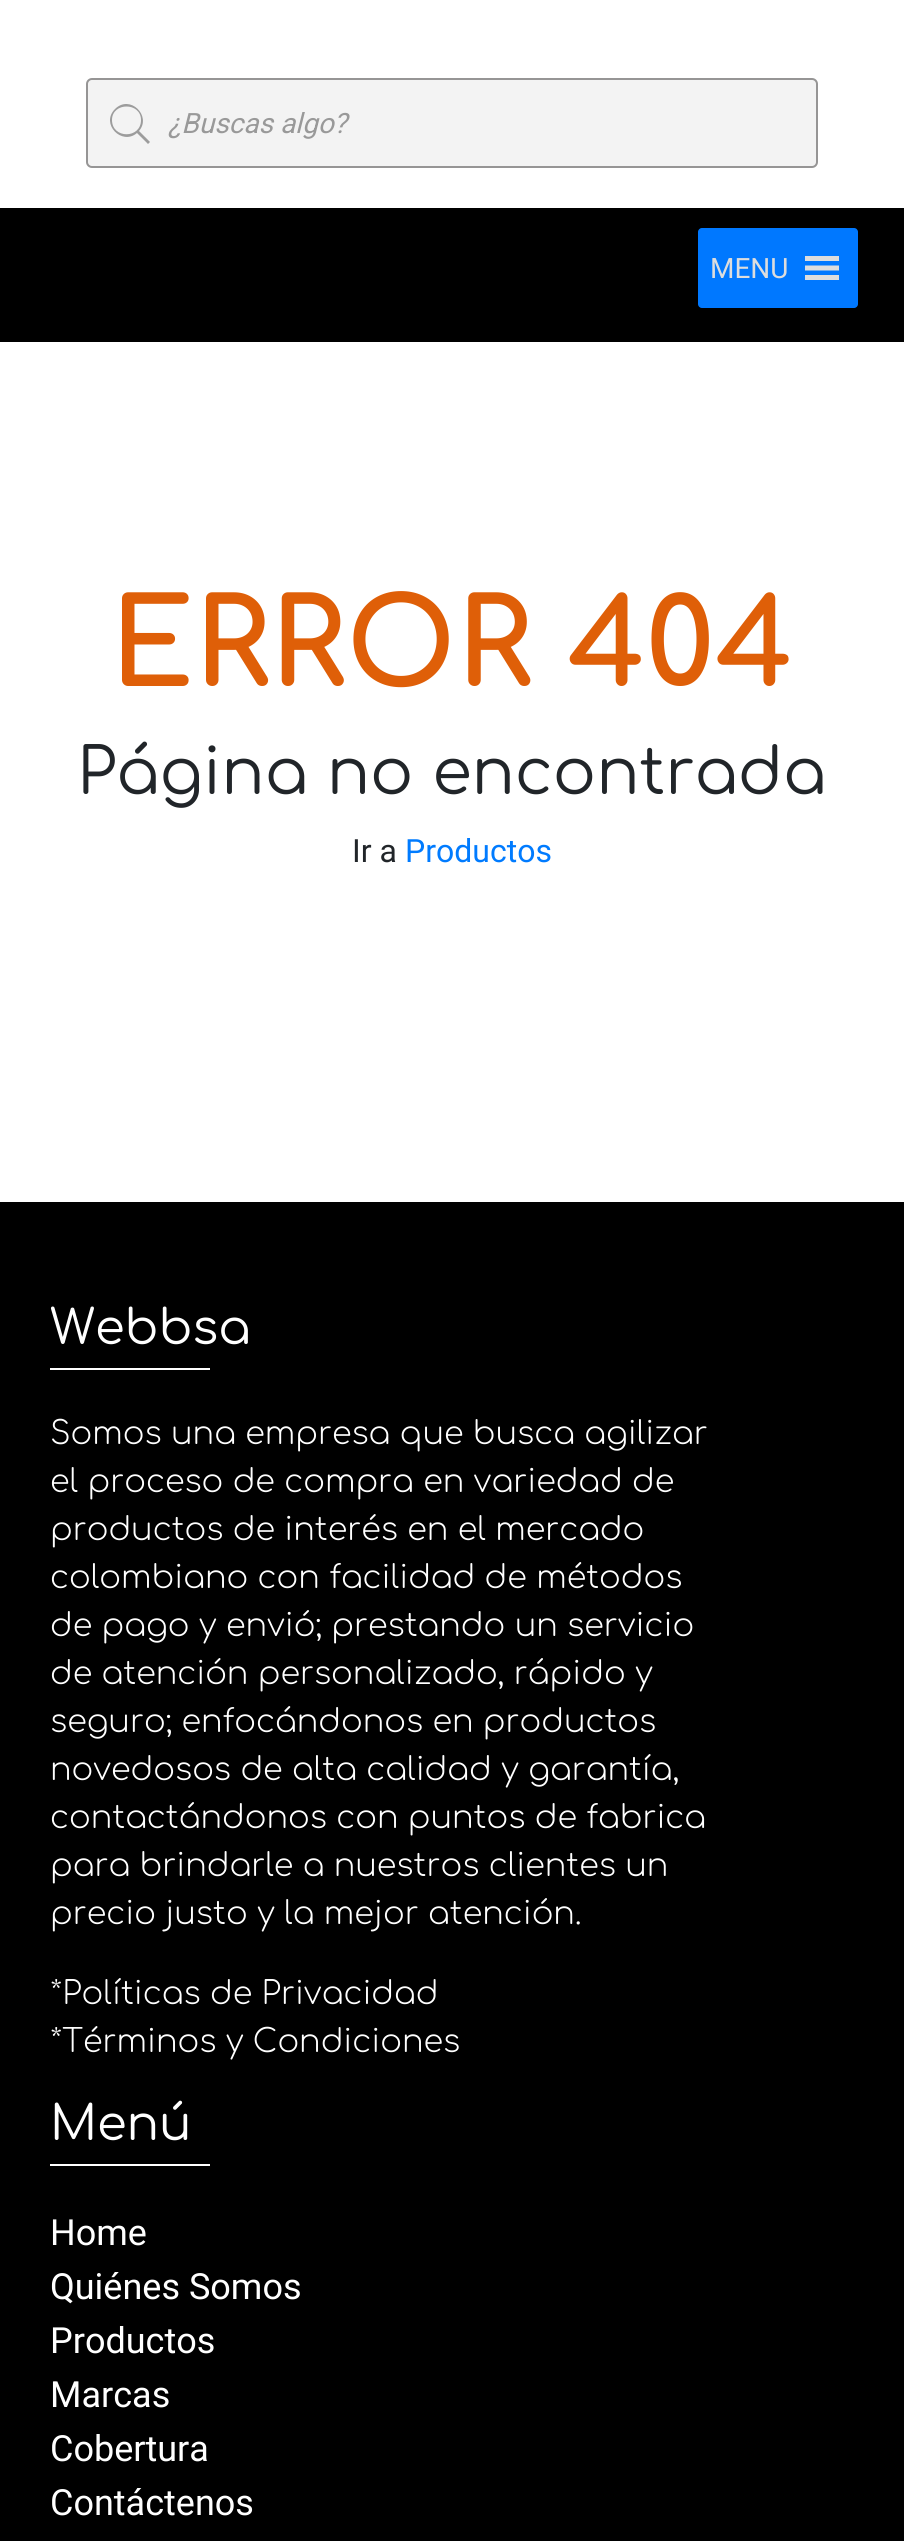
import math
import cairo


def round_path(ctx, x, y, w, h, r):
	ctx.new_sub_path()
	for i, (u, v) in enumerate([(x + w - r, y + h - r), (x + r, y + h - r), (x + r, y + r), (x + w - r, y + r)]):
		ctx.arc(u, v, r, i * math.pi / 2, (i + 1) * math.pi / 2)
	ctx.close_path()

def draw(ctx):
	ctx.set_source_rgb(1, 1, 1)
	ctx.paint()
	ctx.set_source_rgb(0.953, 0.953, 0.953)
	round_path(ctx, 87, 79, 730, 88, 5)
	ctx.fill_preserve()
	ctx.set_source_rgb(0.588, 0.584, 0.584)
	ctx.stroke()
	ctx.set_source_rgb(0.612, 0.612, 0.612)
	ctx.new_path()
	ctx.move_to(150, 142)
	ctx.line_to(139, 131)
	ctx.curve_to(152, 116, 130, 94, 115, 109)
	ctx.curve_to(100, 124, 122, 146, 137, 133)
	ctx.line_to(148, 144)
	ctx.close_path()
	ctx.move_to(112, 120)
	ctx.curve_to(112, 102, 141, 102, 141, 120)
	ctx.curve_to(141, 139, 112, 139, 112, 120)
	ctx.close_path()
	ctx.fill()
	ctx.select_font_face('Roboto', cairo.FONT_SLANT_ITALIC)
	ctx.set_font_size(28)
	ctx.set_source_rgb(0.6, 0.6, 0.6)
	ctx.move_to(168, 133)
	ctx.show_text('¿Buscas algo?')
	ctx.set_source_rgb(0, 0, 0)
	ctx.rectangle(0, 208, 904, 134)
	ctx.fill()
	ctx.set_source_rgb(0, 0.471, 1)
	round_path(ctx, 698, 228, 160, 80, 4)
	ctx.fill()
	ctx.select_font_face('Roboto')
	ctx.set_source_rgb(0.867, 0.867, 0.867)
	ctx.move_to(710, 278)
	ctx.show_text('MENU')
	ctx.new_path()
	ctx.move_to(805, 280)
	ctx.line_to(839, 280)
	ctx.line_to(839, 275)
	ctx.line_to(805, 275)
	ctx.close_path()
	ctx.move_to(805, 256)
	ctx.line_to(805, 261)
	ctx.line_to(839, 261)
	ctx.line_to(839, 256)
	ctx.close_path()
	ctx.move_to(805, 270.5)
	ctx.line_to(839, 270.5)
	ctx.line_to(839, 265.5)
	ctx.line_to(805, 265.5)
	ctx.close_path()
	ctx.fill()
	ctx.select_font_face('Comfortaa', cairo.FONT_SLANT_NORMAL, cairo.FONT_WEIGHT_BOLD)
	ctx.set_font_size(120)
	ctx.set_source_rgb(0.875, 0.373, 0.035)
	ctx.move_to(110, 686)
	ctx.show_text('ERROR 404')
	ctx.select_font_face('Comfortaa')
	ctx.set_font_size(64)
	ctx.set_source_rgb(0.129, 0.145, 0.161)
	ctx.move_to(77, 794)
	ctx.show_text('Página no encontrada')
	ctx.select_font_face('Roboto')
	ctx.set_font_size(32)
	ctx.move_to(352, 862)
	ctx.show_text('Ir a')
	ctx.set_source_rgb(0, 0.482, 1)
	ctx.move_to(405, 862)
	ctx.show_text('Productos')
	ctx.set_source_rgb(0, 0, 0)
	ctx.rectangle(0, 1202, 904, 1339)
	ctx.fill()
	ctx.select_font_face('Comfortaa')
	ctx.set_font_size(48)
	ctx.set_source_rgb(1, 1, 1)
	ctx.move_to(50, 1344)
	ctx.show_text('Webbsa')
	ctx.rectangle(50, 1368, 160, 2)
	ctx.fill()
	ctx.select_font_face('Comfortaa Light')
	ctx.set_font_size(32)
	for x, y, s in [
		(50, 1444, 'Somos una empresa que busca agilizar'),
		(50, 1492, 'el proceso de compra en variedad de'),
		(50, 1540, 'productos de interés en el mercado'),
		(50, 1588, 'colombiano con facilidad de métodos'),
		(50, 1636, 'de pago y envió; prestando un servicio'),
		(50, 1684, 'de atención personalizado, rápido y'),
		(50, 1732, 'seguro; enfocándonos en productos'),
		(50, 1780, 'novedosos de alta calidad y garantía,'),
		(50, 1828, 'contactándonos con puntos de fabrica'),
		(50, 1876, 'para brindarle a nuestros clientes un'),
		(50, 1924, 'precio justo y la mejor atención.'),
		(50, 2004, '*Políticas de Privacidad'),
		(50, 2052, '*Términos y Condiciones'),
	]:
		ctx.move_to(x, y)
		ctx.show_text(s)
	ctx.select_font_face('Comfortaa')
	ctx.set_font_size(48)
	ctx.move_to(50, 2140)
	ctx.show_text('Menú')
	ctx.rectangle(50, 2164, 160, 2)
	ctx.fill()
	ctx.select_font_face('Roboto')
	ctx.set_font_size(36)
	for x, y, s in [
		(50, 2245, 'Home'),
		(50, 2299, 'Quiénes Somos'),
		(50, 2353, 'Productos'),
		(50, 2407, 'Marcas'),
		(50, 2461, 'Cobertura'),
		(50, 2515, 'Contáctenos'),
	]:
		ctx.move_to(x, y)
		ctx.show_text(s)


surface = cairo.ImageSurface(cairo.FORMAT_RGB24, 904, 2541)
ctx = cairo.Context(surface)
options = cairo.FontOptions()
options.set_hint_metrics(cairo.HINT_METRICS_OFF)
options.set_hint_style(cairo.HINT_STYLE_NONE)
ctx.set_font_options(options)
ctx.set_miter_limit(4)
draw(ctx)
surface.write_to_png('image.png')
